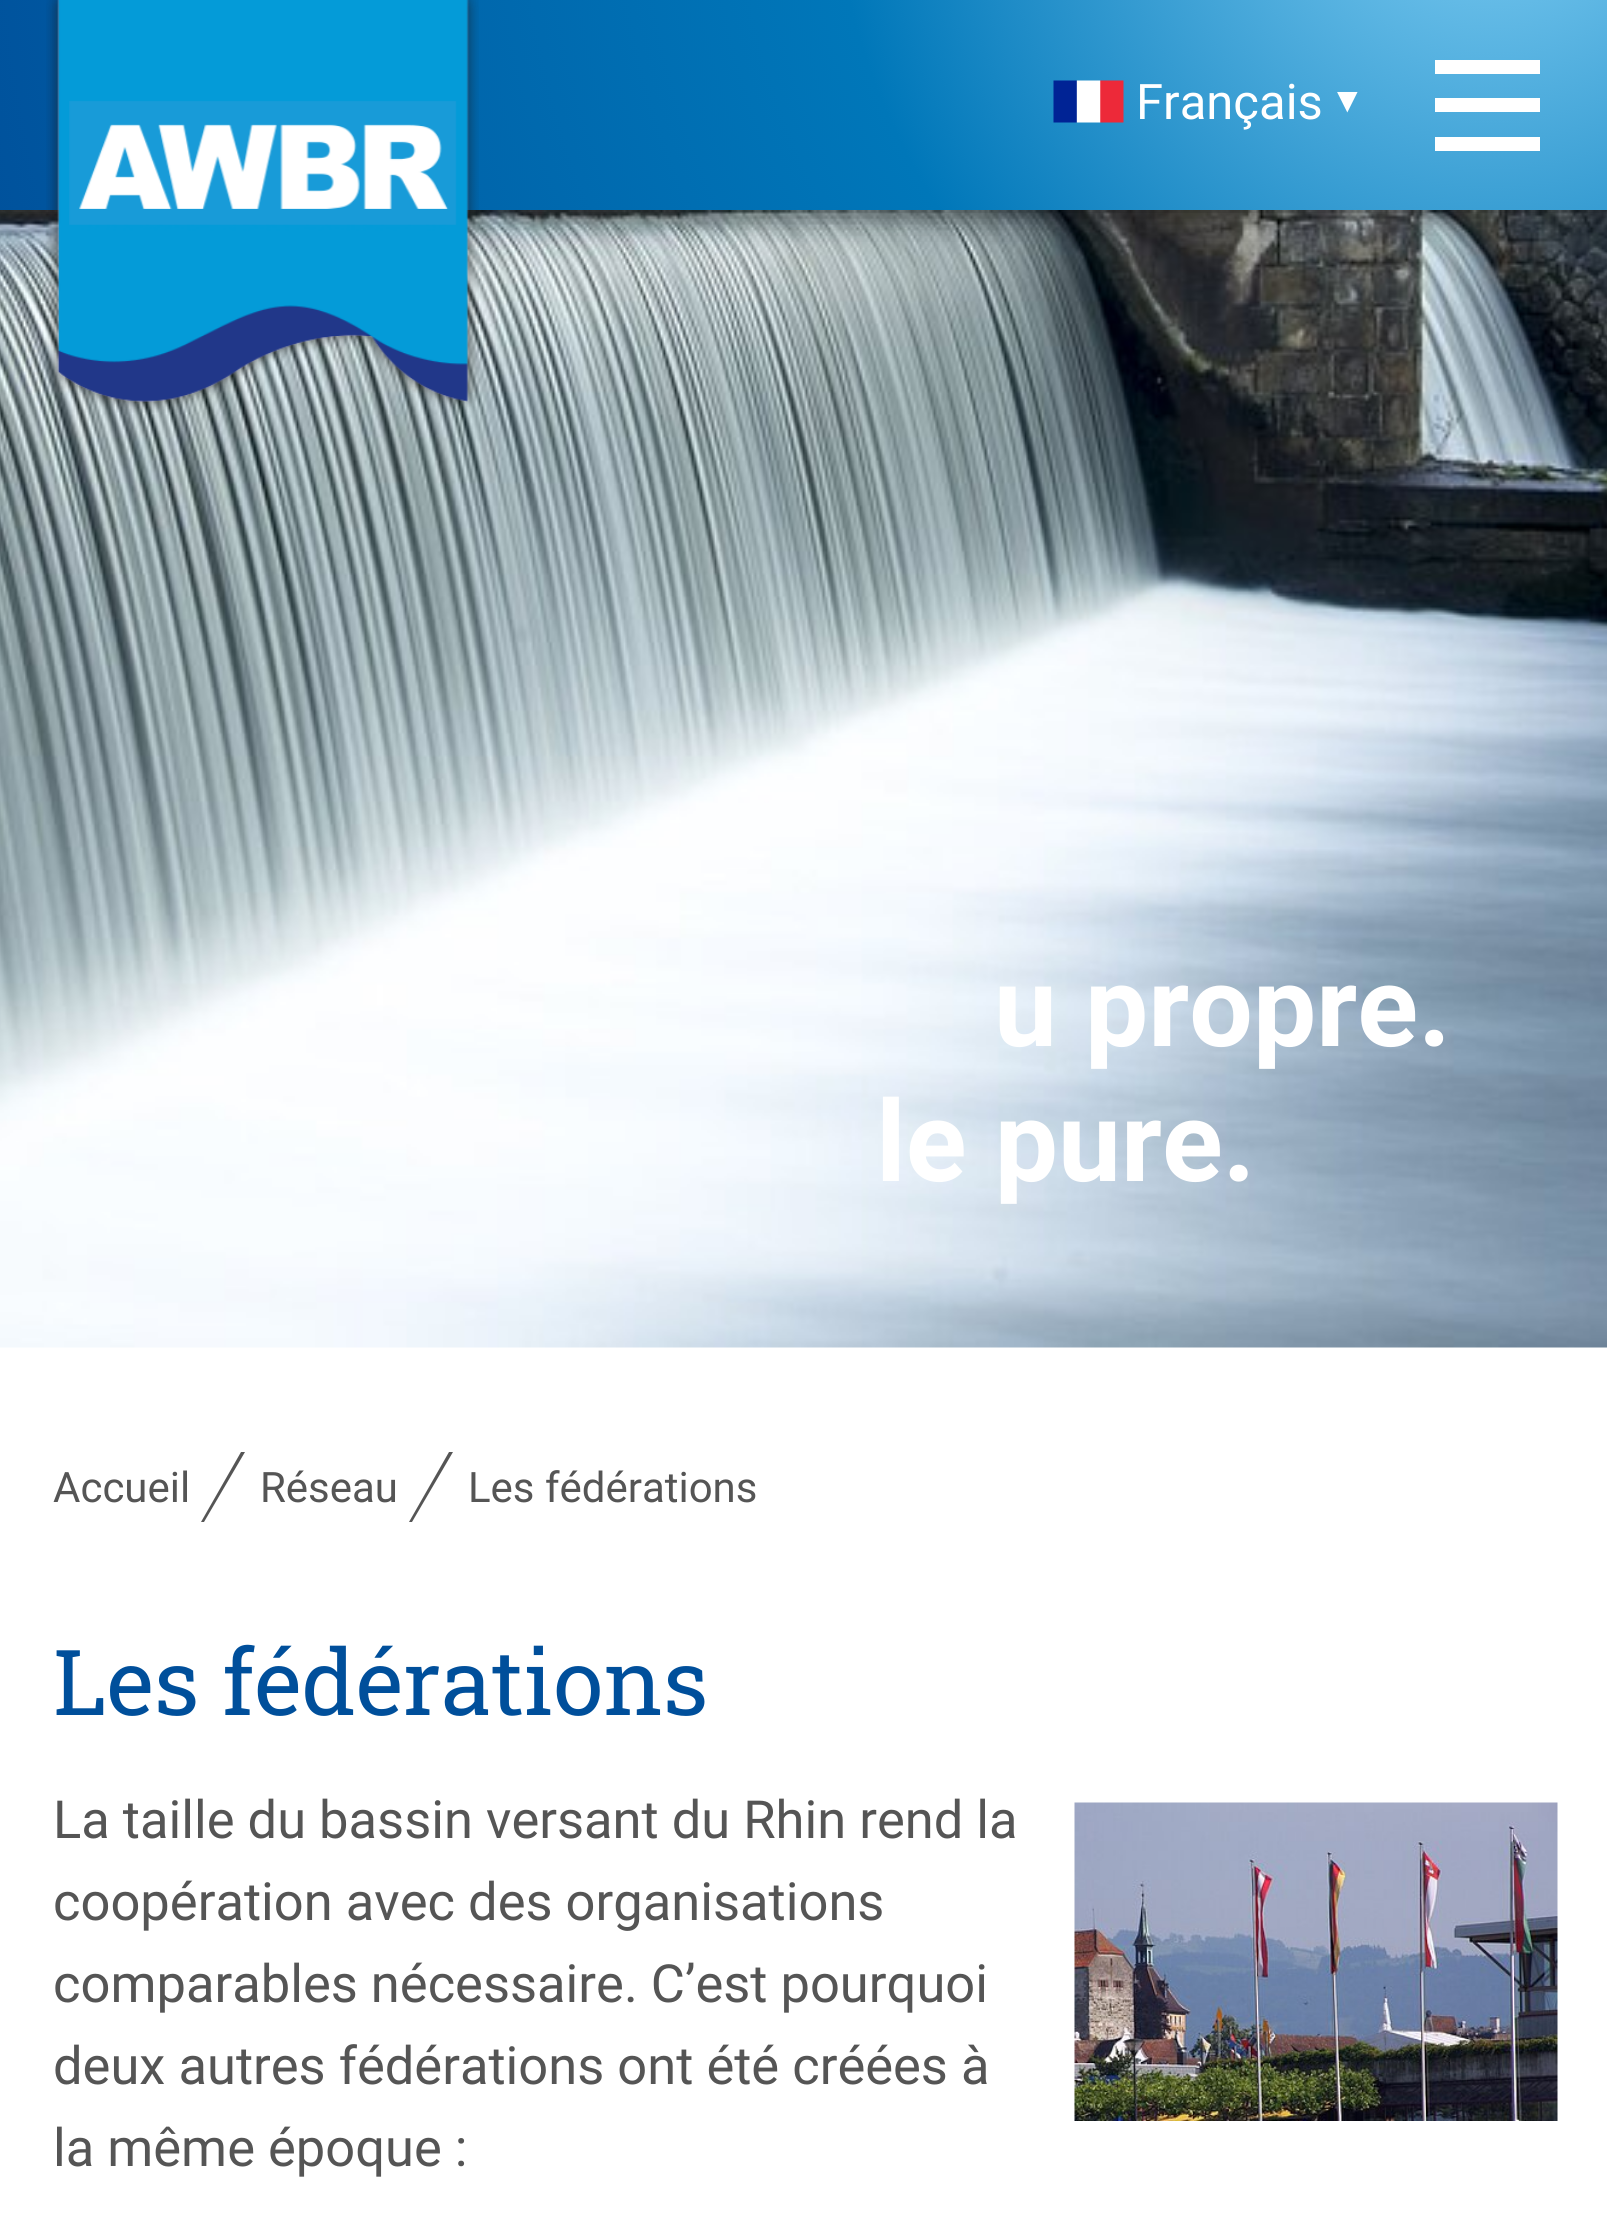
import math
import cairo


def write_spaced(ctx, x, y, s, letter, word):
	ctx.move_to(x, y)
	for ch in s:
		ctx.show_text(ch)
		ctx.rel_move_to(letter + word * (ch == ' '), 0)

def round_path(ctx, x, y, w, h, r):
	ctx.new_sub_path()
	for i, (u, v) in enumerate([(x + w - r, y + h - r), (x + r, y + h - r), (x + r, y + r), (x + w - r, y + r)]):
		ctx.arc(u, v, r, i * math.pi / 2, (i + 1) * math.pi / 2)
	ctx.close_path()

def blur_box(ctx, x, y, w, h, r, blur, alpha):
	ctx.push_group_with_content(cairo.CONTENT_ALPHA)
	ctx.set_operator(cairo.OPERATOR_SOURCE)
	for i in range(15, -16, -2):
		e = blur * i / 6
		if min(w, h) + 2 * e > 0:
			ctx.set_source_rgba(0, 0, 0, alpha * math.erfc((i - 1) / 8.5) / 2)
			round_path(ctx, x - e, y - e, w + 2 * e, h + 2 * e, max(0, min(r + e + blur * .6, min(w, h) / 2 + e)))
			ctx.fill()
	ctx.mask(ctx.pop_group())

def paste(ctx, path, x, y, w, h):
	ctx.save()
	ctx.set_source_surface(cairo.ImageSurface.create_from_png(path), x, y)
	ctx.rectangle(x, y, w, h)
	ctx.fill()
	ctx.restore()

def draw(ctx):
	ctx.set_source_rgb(1, 1, 1)
	ctx.paint()
	paste(ctx, 'media/4.png', 0, 210, 1607, 1138)
	ctx.set_source_rgb(0, 0, 0)
	blur_box(ctx, 0, 0, 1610, 210, 0, 17.5, 0.5)
	paste(ctx, 'media/1.png', 0, 0, 1607, 210)
	paste(ctx, 'media/2.png', 46, 0, 433, 413)
	paste(ctx, 'media/3.png', 1053, 80, 71, 43)
	ctx.select_font_face('Roboto')
	ctx.set_font_size(49)
	ctx.set_source_rgb(1, 1, 1)
	ctx.move_to(1136, 119)
	ctx.show_text('Français')
	ctx.select_font_face('Liberation Sans')
	ctx.set_font_size(35)
	ctx.move_to(1330, 112)
	ctx.show_text('▼')
	ctx.rectangle(1435, 60, 105, 14)
	ctx.rectangle(1435, 98, 105, 14)
	ctx.rectangle(1435, 137, 105, 14)
	ctx.fill()
	ctx.select_font_face('Roboto', cairo.FONT_SLANT_NORMAL, cairo.FONT_WEIGHT_BOLD)
	ctx.set_font_size(112.5)
	ctx.move_to(994, 1046)
	ctx.show_text('u propre.')
	ctx.move_to(876, 1181)
	ctx.show_text('le pure.')
	ctx.select_font_face('Roboto')
	ctx.set_font_size(42)
	ctx.set_source_rgb(0.333, 0.333, 0.333)
	ctx.move_to(53, 1502)
	ctx.show_text('Accueil')
	ctx.new_path()
	ctx.move_to(241, 1452)
	ctx.line_to(245, 1452)
	ctx.line_to(204, 1522)
	ctx.line_to(201, 1522)
	ctx.close_path()
	ctx.fill()
	ctx.move_to(260, 1502)
	ctx.show_text('Réseau')
	ctx.new_path()
	ctx.move_to(449, 1452)
	ctx.line_to(453, 1452)
	ctx.line_to(412, 1522)
	ctx.line_to(409, 1522)
	ctx.close_path()
	ctx.fill()
	ctx.move_to(468, 1502)
	ctx.show_text('Les fédérations')
	ctx.select_font_face('Roboto Slab')
	ctx.set_font_size(91)
	ctx.set_source_rgb(0, 0.31, 0.608)
	write_spaced(ctx, 53, 1715, 'Les fédérations', 0.1, 0)
	ctx.select_font_face('Roboto')
	ctx.set_font_size(52.5)
	ctx.set_source_rgb(0.333, 0.333, 0.333)
	for x, y, s in [
		(53, 1838, 'La taille du bassin versant du Rhin rend la'),
		(53, 1920, 'coopération avec des organisations'),
		(53, 2002, 'comparables nécessaire. C’est pourquoi'),
		(53, 2084, 'deux autres fédérations ont été créées à'),
		(53, 2166, 'la même époque :'),
	]:
		ctx.move_to(x, y)
		ctx.show_text(s)
	paste(ctx, 'media/5.png', 1074, 1802, 484, 319)


surface = cairo.ImageSurface(cairo.FORMAT_RGB24, 1607, 2236)
ctx = cairo.Context(surface)
options = cairo.FontOptions()
options.set_hint_metrics(cairo.HINT_METRICS_OFF)
options.set_hint_style(cairo.HINT_STYLE_NONE)
ctx.set_font_options(options)
ctx.set_miter_limit(4)
draw(ctx)
surface.write_to_png('image.png')
